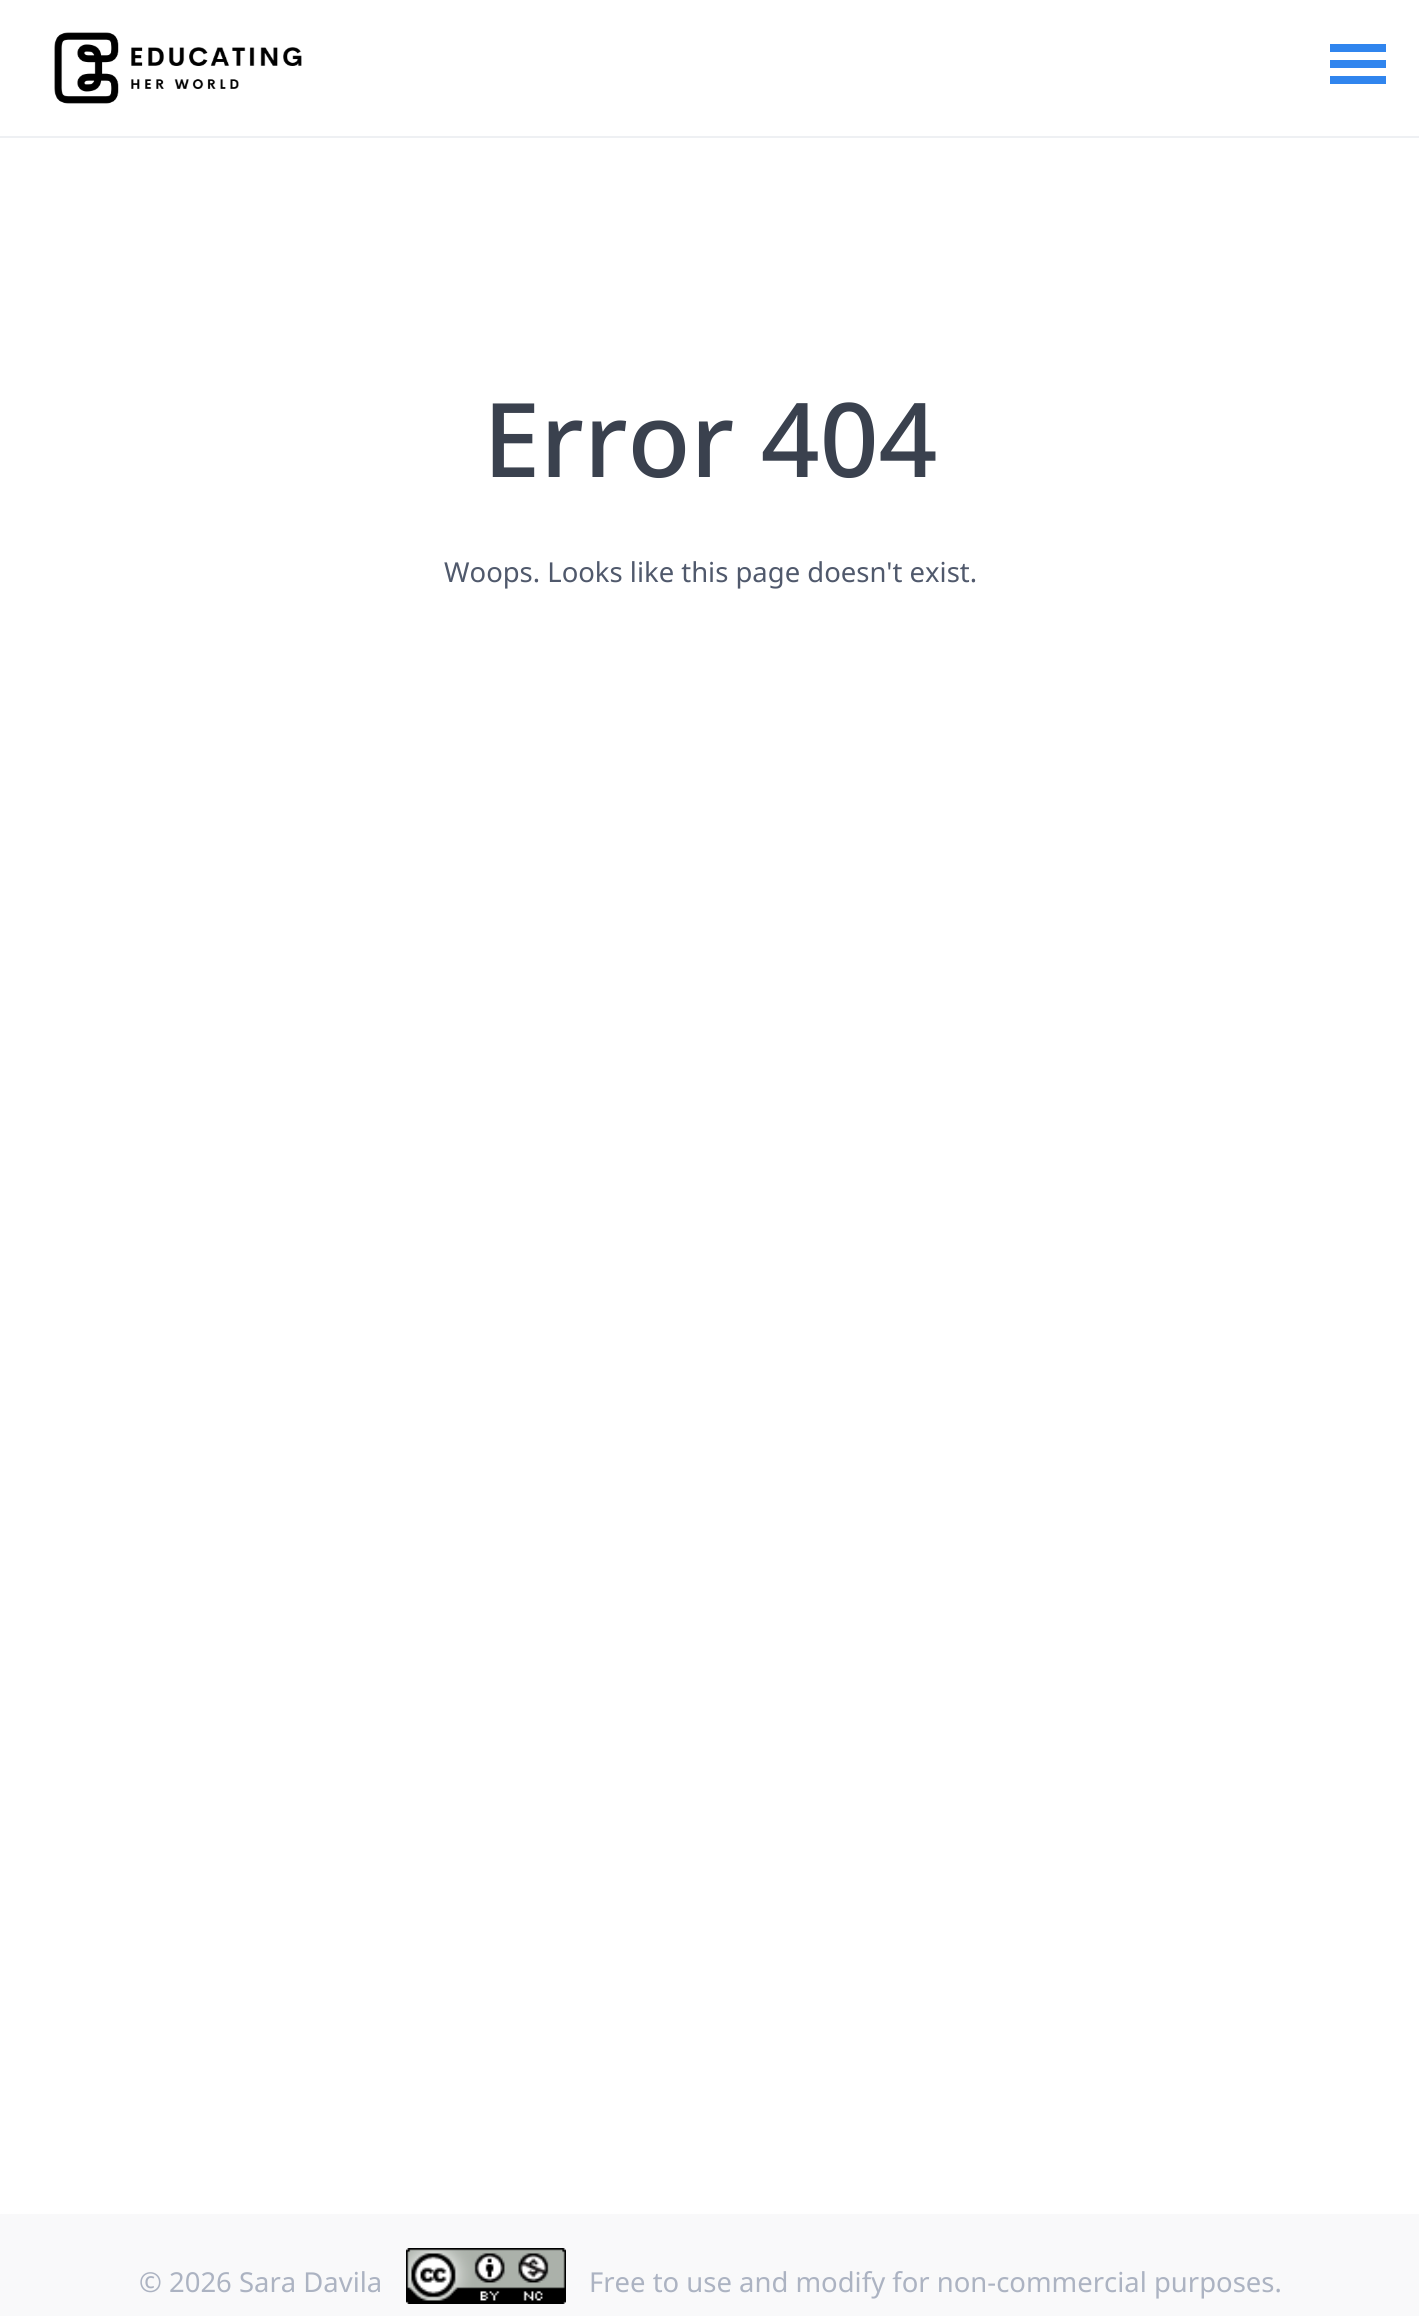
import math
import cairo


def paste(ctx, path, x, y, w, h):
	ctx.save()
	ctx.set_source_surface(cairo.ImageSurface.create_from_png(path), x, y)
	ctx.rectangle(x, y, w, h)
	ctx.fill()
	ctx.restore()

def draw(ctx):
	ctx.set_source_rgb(1, 1, 1)
	ctx.paint()
	ctx.set_source_rgb(0.933, 0.941, 0.953)
	ctx.rectangle(0, 136, 1419, 2)
	ctx.fill()
	paste(ctx, 'media/1.png', 54, 32, 248, 72)
	ctx.set_source_rgb(0.188, 0.522, 0.933)
	ctx.rectangle(1330, 44, 56, 8)
	ctx.rectangle(1330, 60, 56, 8)
	ctx.rectangle(1330, 76, 56, 8)
	ctx.fill()
	ctx.select_font_face('Noto Sans Medium')
	ctx.set_font_size(103)
	ctx.set_source_rgb(0.227, 0.255, 0.306)
	ctx.move_to(483, 477)
	ctx.show_text('Error 404')
	ctx.select_font_face('Noto Sans')
	ctx.set_font_size(27.45)
	ctx.set_source_rgb(0.314, 0.349, 0.424)
	ctx.move_to(444, 582)
	ctx.show_text('Woops. Looks like this page doesn\'t exist.')
	ctx.set_source_rgb(0.973, 0.976, 0.98)
	ctx.rectangle(0, 2214, 1419, 102)
	ctx.fill()
	ctx.set_source_rgb(0.675, 0.702, 0.761)
	ctx.move_to(139, 2292)
	ctx.show_text('© 2026 Sara Davila')
	paste(ctx, 'media/2.png', 406, 2248, 160, 56)
	ctx.move_to(589, 2292)
	ctx.show_text('Free to use and modify for non-commercial purposes.')


surface = cairo.ImageSurface(cairo.FORMAT_RGB24, 1419, 2316)
ctx = cairo.Context(surface)
options = cairo.FontOptions()
options.set_hint_metrics(cairo.HINT_METRICS_OFF)
options.set_hint_style(cairo.HINT_STYLE_NONE)
ctx.set_font_options(options)
ctx.set_miter_limit(4)
draw(ctx)
surface.write_to_png('image.png')
